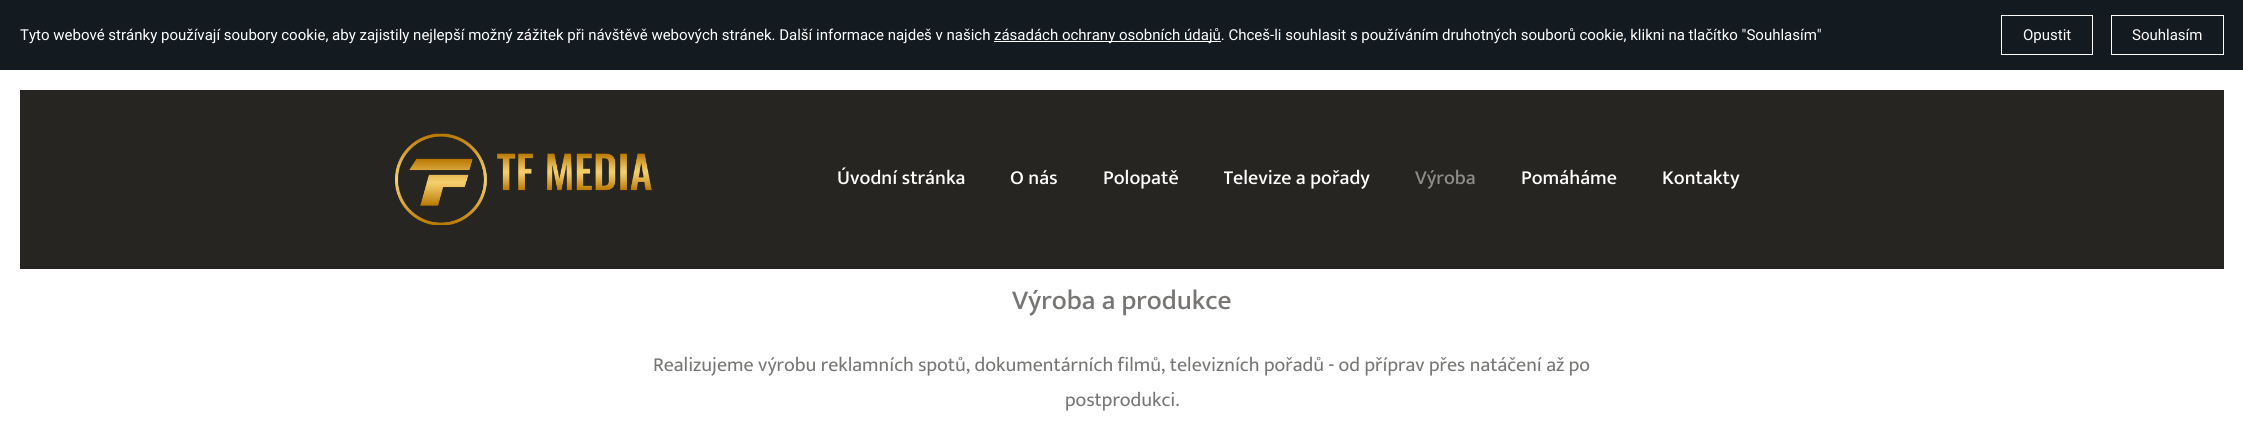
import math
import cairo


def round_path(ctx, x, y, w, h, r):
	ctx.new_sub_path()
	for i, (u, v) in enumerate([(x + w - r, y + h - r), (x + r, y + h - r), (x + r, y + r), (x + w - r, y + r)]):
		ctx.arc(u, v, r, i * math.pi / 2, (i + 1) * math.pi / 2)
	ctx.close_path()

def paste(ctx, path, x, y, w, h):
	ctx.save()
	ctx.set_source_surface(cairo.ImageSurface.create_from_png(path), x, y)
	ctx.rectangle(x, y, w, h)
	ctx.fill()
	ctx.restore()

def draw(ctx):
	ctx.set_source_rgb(1, 1, 1)
	ctx.paint()
	ctx.set_source_rgb(0.075, 0.102, 0.125)
	ctx.rectangle(0, 0, 2243, 70)
	ctx.fill()
	ctx.select_font_face('Roboto')
	ctx.set_font_size(15)
	ctx.set_source_rgb(1, 1, 1)
	ctx.move_to(20, 40)
	ctx.show_text('Tyto webové stránky používají soubory cookie, aby zajistily nejlepší možný zážitek při návštěvě webových stránek. Další informace najdeš v našich')
	ctx.rectangle(994, 41, 227, 1)
	ctx.fill()
	ctx.move_to(994, 40)
	ctx.show_text('zásadách ochrany osobních údajů. Chceš-li souhlasit s používáním druhotných souborů cookie, klikni na tlačítko "Souhlasím"')
	ctx.rectangle(2001.5, 15.5, 91, 39)
	ctx.set_line_width(1)
	ctx.stroke()
	ctx.move_to(2023, 40)
	ctx.show_text('Opustit')
	ctx.rectangle(2111.5, 15.5, 112, 39)
	ctx.stroke()
	ctx.move_to(2132, 40)
	ctx.show_text('Souhlasím')
	ctx.set_source_rgb(0.149, 0.145, 0.129)
	ctx.rectangle(20, 90, 2204, 179)
	ctx.fill()
	paste(ctx, 'media/1.png', 395, 133, 257, 92)
	ctx.select_font_face('Mukta Medium')
	ctx.set_font_size(20)
	ctx.set_source_rgb(1, 1, 1)
	for x, y, s in [
		(837, 184, 'Úvodní stránka'),
		(1010, 184, 'O nás'),
		(1103, 184, 'Polopatě'),
	]:
		ctx.move_to(x, y)
		ctx.show_text(s)
	ctx.save()
	round_path(ctx, 1224, 161, 146, 35, 5)
	ctx.clip()
	ctx.move_to(1223, 184)
	ctx.show_text('Televize a pořady')
	ctx.restore()
	ctx.set_source_rgb(0.549, 0.545, 0.537)
	ctx.move_to(1415, 184)
	ctx.show_text('Výroba')
	ctx.set_source_rgb(1, 1, 1)
	ctx.move_to(1521, 184)
	ctx.show_text('Pomáháme')
	ctx.move_to(1662, 184)
	ctx.show_text('Kontakty')
	ctx.set_font_size(27.5)
	ctx.set_source_rgb(0.467, 0.463, 0.455)
	ctx.move_to(1012, 309)
	ctx.show_text('Výroba a produkce')
	ctx.select_font_face('Mukta')
	ctx.set_font_size(20)
	ctx.move_to(653, 371)
	ctx.show_text('Realizujeme výrobu reklamních spotů, dokumentárních filmů, televizních pořadů - od příprav přes natáčení až po')
	ctx.move_to(1065, 406)
	ctx.show_text('postprodukci.')


surface = cairo.ImageSurface(cairo.FORMAT_RGB24, 2243, 435)
ctx = cairo.Context(surface)
options = cairo.FontOptions()
options.set_hint_metrics(cairo.HINT_METRICS_OFF)
options.set_hint_style(cairo.HINT_STYLE_NONE)
ctx.set_font_options(options)
ctx.set_miter_limit(4)
draw(ctx)
surface.write_to_png('image.png')
